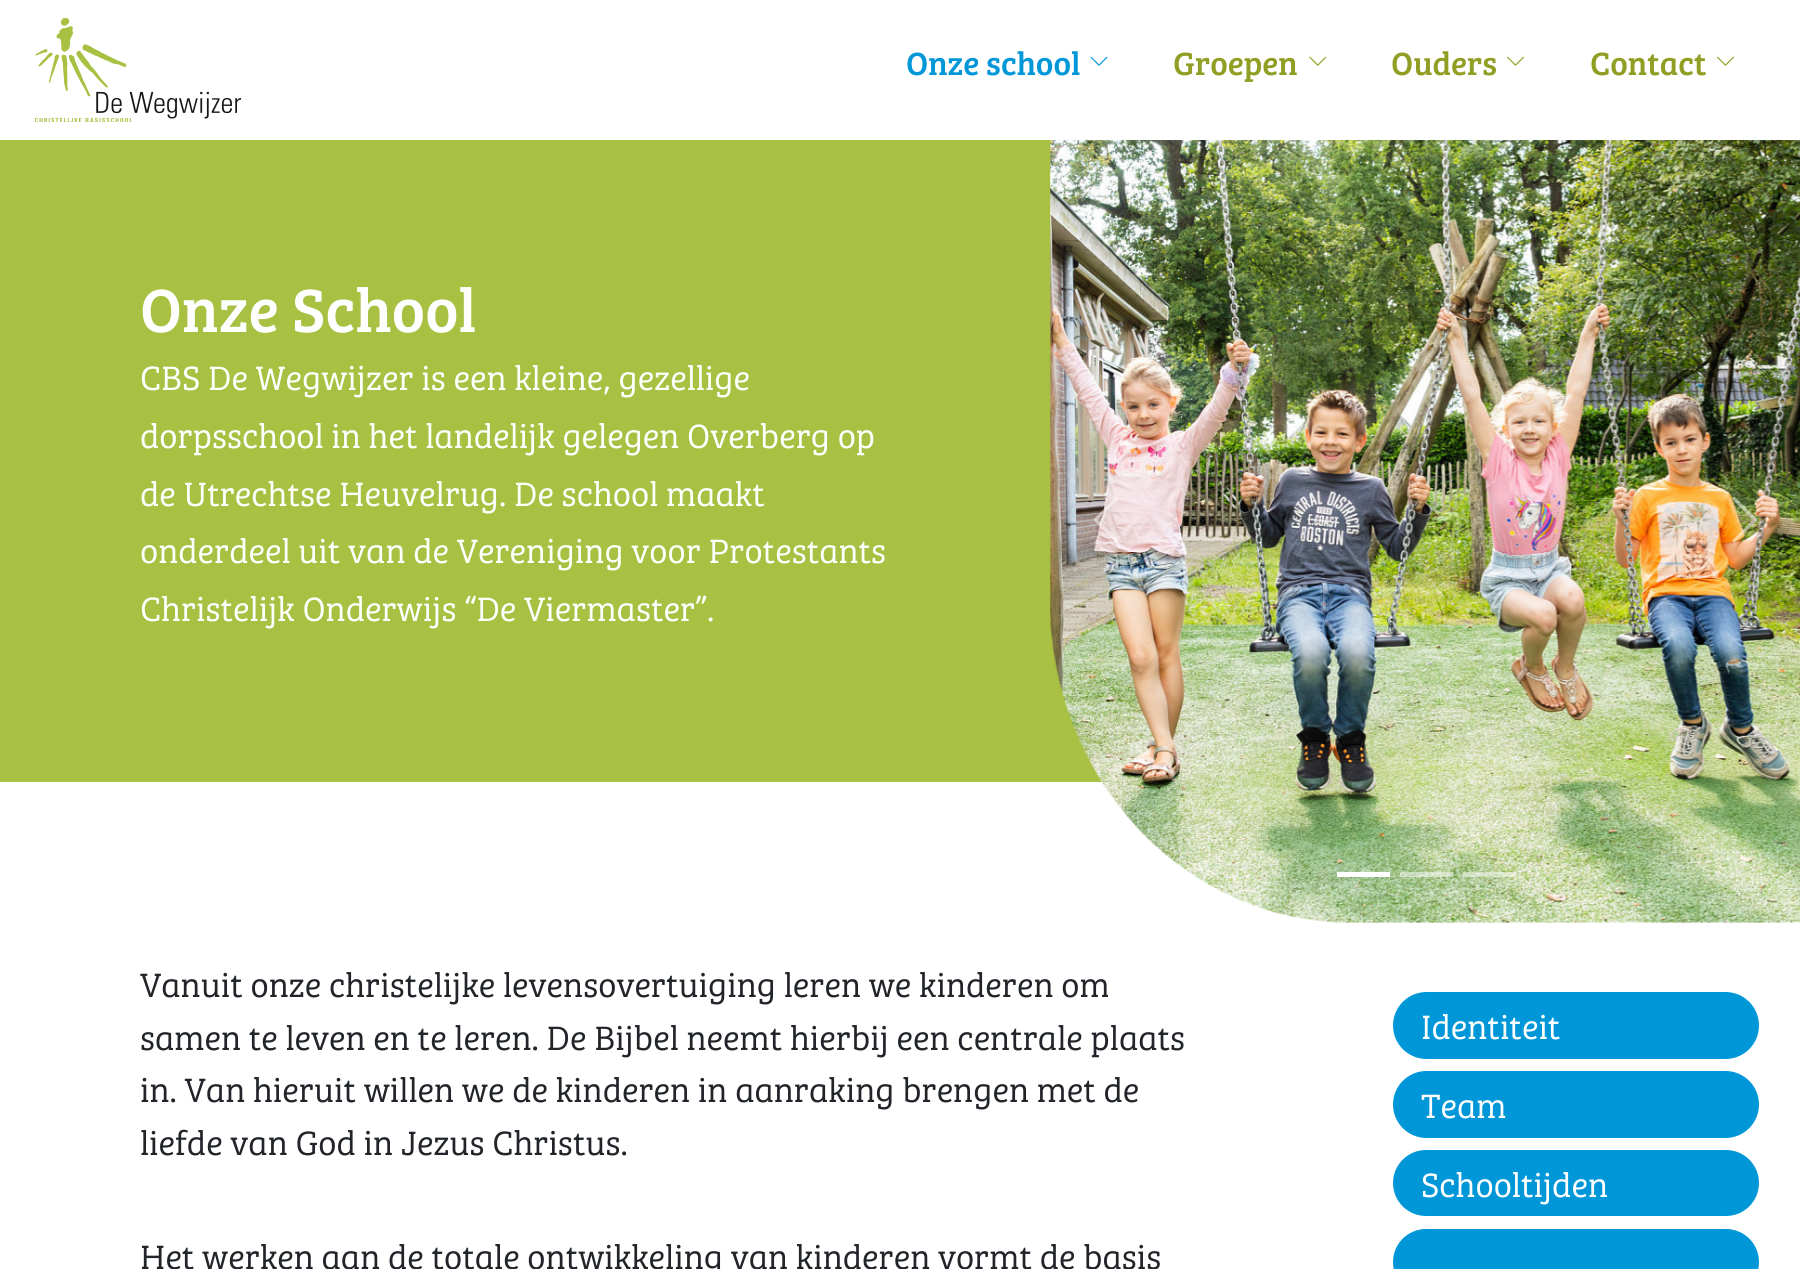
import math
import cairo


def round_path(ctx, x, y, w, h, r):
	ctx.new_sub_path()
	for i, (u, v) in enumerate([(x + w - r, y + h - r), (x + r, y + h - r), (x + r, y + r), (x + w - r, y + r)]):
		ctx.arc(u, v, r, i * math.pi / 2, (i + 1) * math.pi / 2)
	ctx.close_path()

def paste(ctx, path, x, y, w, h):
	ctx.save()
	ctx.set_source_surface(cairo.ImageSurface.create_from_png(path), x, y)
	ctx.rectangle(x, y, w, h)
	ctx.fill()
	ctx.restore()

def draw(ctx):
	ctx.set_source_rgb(1, 1, 1)
	ctx.paint()
	paste(ctx, 'media/1.png', 35, 18, 206, 104)
	ctx.select_font_face('Bree Serif')
	ctx.set_font_size(33.25)
	ctx.set_source_rgb(0, 0.592, 0.851)
	ctx.move_to(906, 75)
	ctx.show_text('Onze school')
	paste(ctx, 'media/2.png', 1090, 56, 18, 10)
	ctx.set_source_rgb(0.565, 0.62, 0.141)
	ctx.move_to(1173, 75)
	ctx.show_text('Groepen')
	paste(ctx, 'media/3.png', 1309, 56, 18, 10)
	ctx.move_to(1391, 75)
	ctx.show_text('Ouders')
	paste(ctx, 'media/4.png', 1507, 56, 17, 10)
	ctx.move_to(1590, 75)
	ctx.show_text('Contact')
	paste(ctx, 'media/4.png', 1717, 56, 17, 10)
	ctx.set_source_rgb(0.659, 0.757, 0.259)
	ctx.rectangle(0, 140, 1103, 642)
	ctx.fill()
	ctx.set_font_size(63)
	ctx.set_source_rgb(1, 1, 1)
	ctx.move_to(140, 332)
	ctx.show_text('Onze School')
	ctx.select_font_face('Bree Serif Light')
	ctx.set_font_size(35)
	for x, y, s in [
		(140, 390, 'CBS De Wegwijzer is een kleine, gezellige'),
		(140, 448, 'dorpsschool in het landelijk gelegen Overberg op'),
		(140, 506, 'de Utrechtse Heuvelrug. De school maakt'),
		(140, 563, 'onderdeel uit van de Vereniging voor Protestants'),
		(140, 621, 'Christelijk Onderwijs “De Viermaster”.'),
	]:
		ctx.move_to(x, y)
		ctx.show_text(s)
	paste(ctx, 'media/5.png', 1050, 140, 750, 783)
	paste(ctx, 'media/6.png', 1093, 497, 25, 46)
	paste(ctx, 'media/7.png', 1732, 497, 25, 46)
	ctx.rectangle(1337, 872, 53, 5)
	ctx.fill()
	ctx.set_source_rgba(1, 1, 1, 0.5)
	ctx.rectangle(1400, 872, 53, 5)
	ctx.fill()
	ctx.rectangle(1463, 872, 53, 5)
	ctx.fill()
	ctx.set_source_rgb(0.129, 0.145, 0.161)
	for x, y, s in [
		(140, 997, 'Vanuit onze christelijke levensovertuiging leren we kinderen om'),
		(140, 1050, 'samen te leven en te leren. De Bijbel neemt hierbij een centrale plaats'),
		(140, 1102, 'in. Van hieruit willen we de kinderen in aanraking brengen met de'),
		(140, 1155, 'liefde van God in Jezus Christus.'),
		(140, 1269, 'Het werken aan de totale ontwikkeling van kinderen vormt de basis'),
	]:
		ctx.move_to(x, y)
		ctx.show_text(s)
	ctx.set_source_rgb(0, 0.592, 0.851)
	round_path(ctx, 1393, 992, 366, 67, 33.5)
	ctx.fill()
	ctx.set_source_rgb(1, 1, 1)
	ctx.move_to(1421, 1039)
	ctx.show_text('Identiteit')
	ctx.set_source_rgb(0, 0.592, 0.851)
	round_path(ctx, 1393, 1071, 366, 67, 33.5)
	ctx.fill()
	ctx.set_source_rgb(1, 1, 1)
	ctx.move_to(1421, 1118)
	ctx.show_text('Team')
	ctx.set_source_rgb(0, 0.592, 0.851)
	round_path(ctx, 1393, 1150, 366, 66, 33)
	ctx.fill()
	ctx.set_source_rgb(1, 1, 1)
	ctx.move_to(1421, 1197)
	ctx.show_text('Schooltijden')
	ctx.set_source_rgb(0, 0.592, 0.851)
	round_path(ctx, 1393, 1229, 366, 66, 33)
	ctx.fill()


surface = cairo.ImageSurface(cairo.FORMAT_RGB24, 1800, 1269)
ctx = cairo.Context(surface)
options = cairo.FontOptions()
options.set_hint_metrics(cairo.HINT_METRICS_OFF)
options.set_hint_style(cairo.HINT_STYLE_NONE)
ctx.set_font_options(options)
ctx.set_miter_limit(4)
draw(ctx)
surface.write_to_png('image.png')
